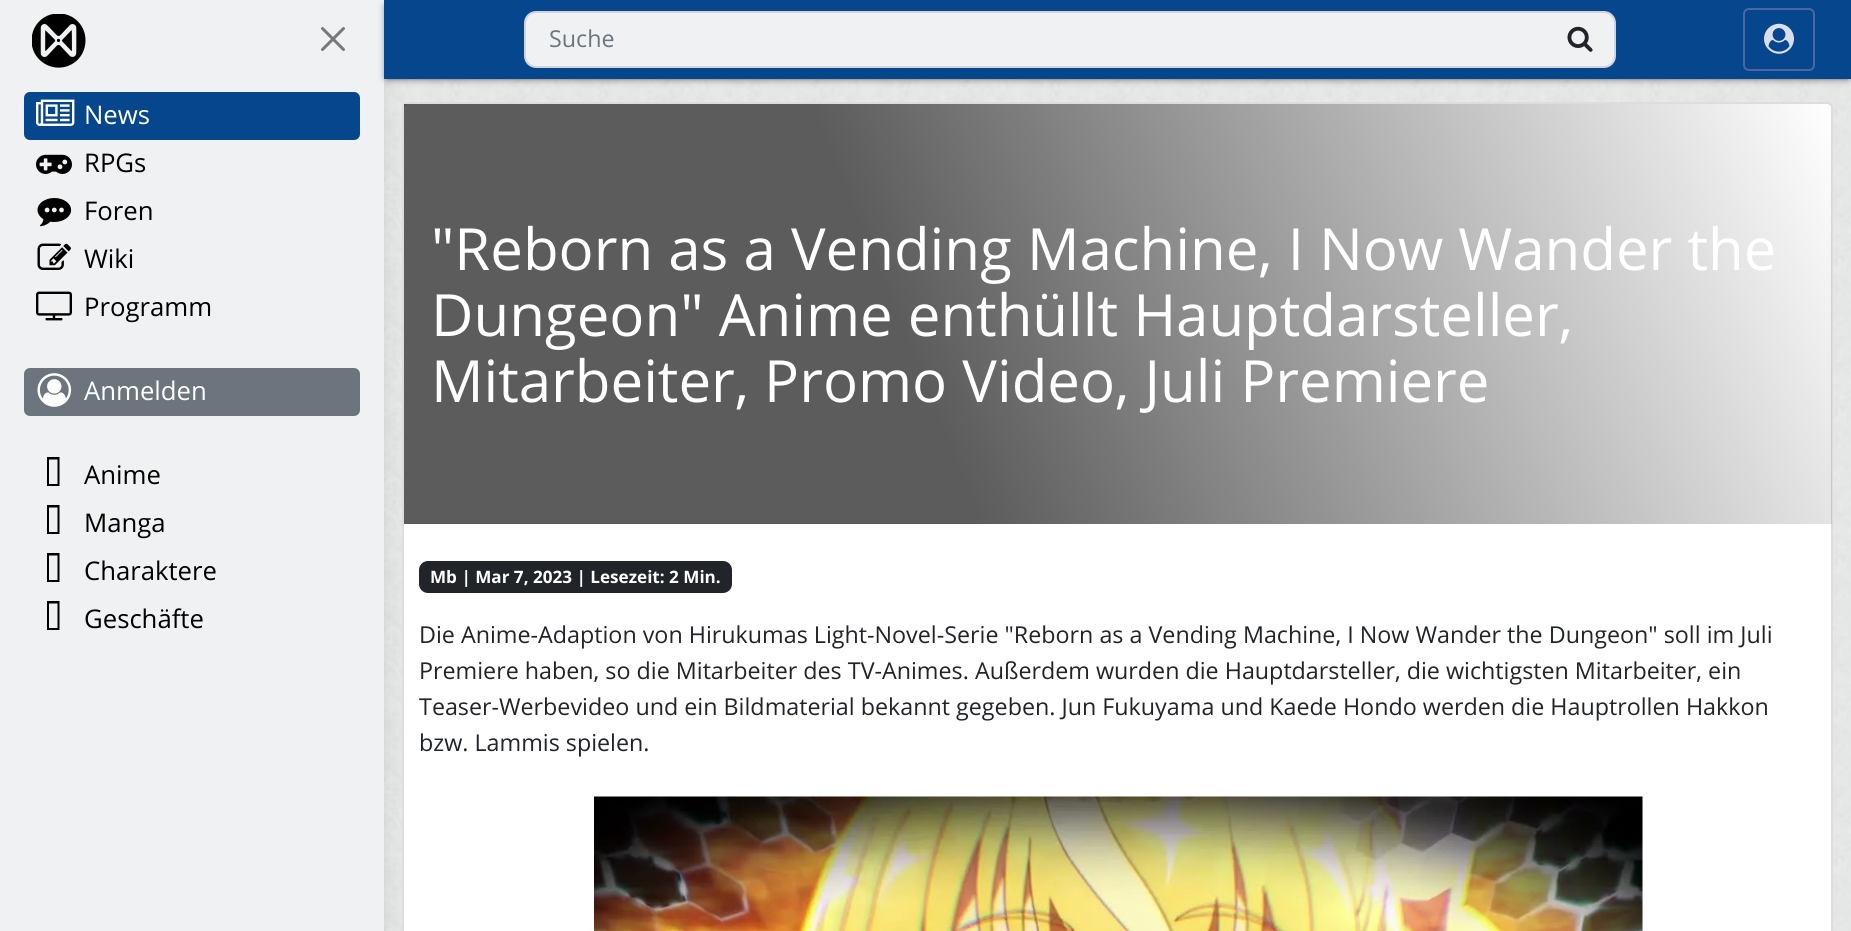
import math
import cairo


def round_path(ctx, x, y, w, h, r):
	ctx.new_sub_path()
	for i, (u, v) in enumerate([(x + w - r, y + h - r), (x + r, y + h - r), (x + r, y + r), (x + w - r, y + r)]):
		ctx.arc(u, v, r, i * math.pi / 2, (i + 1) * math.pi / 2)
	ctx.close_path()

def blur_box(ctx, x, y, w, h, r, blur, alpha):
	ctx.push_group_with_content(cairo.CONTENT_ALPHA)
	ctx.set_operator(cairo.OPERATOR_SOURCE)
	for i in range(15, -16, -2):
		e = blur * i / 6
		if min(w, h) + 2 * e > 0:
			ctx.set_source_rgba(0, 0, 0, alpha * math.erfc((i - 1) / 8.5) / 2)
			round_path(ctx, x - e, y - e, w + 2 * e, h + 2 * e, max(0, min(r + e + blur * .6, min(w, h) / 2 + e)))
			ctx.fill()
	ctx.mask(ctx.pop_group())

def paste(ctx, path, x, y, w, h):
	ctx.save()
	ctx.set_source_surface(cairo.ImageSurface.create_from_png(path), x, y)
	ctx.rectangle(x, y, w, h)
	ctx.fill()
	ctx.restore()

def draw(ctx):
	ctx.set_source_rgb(1, 1, 1)
	ctx.paint()
	paste(ctx, 'media/1.png', 384, 79, 1467, 852)
	ctx.set_source_rgb(0, 0, 0)
	blur_box(ctx, 0, 0, 384, 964, 0, 11, 0.1)
	ctx.set_source_rgb(0.941, 0.945, 0.949)
	ctx.rectangle(0, 0, 384, 931)
	ctx.fill()
	paste(ctx, 'media/2.png', 32, 14, 54, 54)
	paste(ctx, 'media/3.png', 321, 27, 24, 24)
	ctx.set_source_rgb(0.027, 0.275, 0.553)
	round_path(ctx, 24, 92, 336, 48, 6)
	ctx.fill()
	paste(ctx, 'media/4.png', 36, 99, 39, 27)
	ctx.select_font_face('Open Sans')
	ctx.set_font_size(26.5)
	ctx.set_source_rgb(1, 1, 1)
	ctx.move_to(84, 124)
	ctx.show_text('News')
	paste(ctx, 'media/5.png', 36, 154, 36, 20)
	ctx.set_source_rgb(0, 0, 0)
	ctx.move_to(84, 172)
	ctx.show_text('RPGs')
	paste(ctx, 'media/6.png', 37, 198, 35, 29)
	ctx.move_to(84, 220)
	ctx.show_text('Foren')
	paste(ctx, 'media/7.png', 37, 243, 34, 27)
	ctx.move_to(84, 268)
	ctx.show_text('Wiki')
	paste(ctx, 'media/8.png', 36, 291, 36, 30)
	ctx.move_to(84, 316)
	ctx.show_text('Programm')
	ctx.set_source_rgb(0.424, 0.459, 0.49)
	round_path(ctx, 24, 368, 336, 48, 6)
	ctx.fill()
	paste(ctx, 'media/9.png', 37, 373, 35, 34)
	ctx.set_source_rgb(1, 1, 1)
	ctx.move_to(84, 400)
	ctx.show_text('Anmelden')
	ctx.set_source_rgb(0, 0, 0)
	ctx.new_path()
	ctx.move_to(49, 484)
	ctx.line_to(49, 459.5)
	ctx.line_to(57.5, 459.5)
	ctx.line_to(57.5, 484)
	ctx.close_path()
	ctx.move_to(47, 486)
	ctx.line_to(59.5, 486)
	ctx.line_to(59.5, 457)
	ctx.line_to(47, 457)
	ctx.close_path()
	ctx.fill()
	ctx.move_to(84, 484)
	ctx.show_text('Anime')
	ctx.new_path()
	ctx.move_to(49, 532)
	ctx.line_to(49, 507.5)
	ctx.line_to(57.5, 507.5)
	ctx.line_to(57.5, 532)
	ctx.close_path()
	ctx.move_to(47, 534)
	ctx.line_to(59.5, 534)
	ctx.line_to(59.5, 505)
	ctx.line_to(47, 505)
	ctx.close_path()
	ctx.fill()
	ctx.move_to(84, 532)
	ctx.show_text('Manga')
	ctx.new_path()
	ctx.move_to(49, 580)
	ctx.line_to(49, 555.5)
	ctx.line_to(57.5, 555.5)
	ctx.line_to(57.5, 580)
	ctx.close_path()
	ctx.move_to(47, 582)
	ctx.line_to(59.5, 582)
	ctx.line_to(59.5, 553)
	ctx.line_to(47, 553)
	ctx.close_path()
	ctx.fill()
	ctx.move_to(84, 580)
	ctx.show_text('Charaktere')
	ctx.new_path()
	ctx.move_to(49, 628)
	ctx.line_to(49, 603.5)
	ctx.line_to(57.5, 603.5)
	ctx.line_to(57.5, 628)
	ctx.close_path()
	ctx.move_to(47, 630)
	ctx.line_to(59.5, 630)
	ctx.line_to(59.5, 601)
	ctx.line_to(47, 601)
	ctx.close_path()
	ctx.fill()
	ctx.move_to(84, 628)
	ctx.show_text('Geschäfte')
	ctx.set_source_rgb(0, 0, 0)
	blur_box(ctx, 387, 6, 1461, 72, 0, 4, 0.8)
	ctx.set_source_rgb(0.027, 0.275, 0.553)
	ctx.rectangle(384, 0, 1467, 79)
	ctx.fill()
	ctx.set_source_rgb(0.941, 0.945, 0.949)
	round_path(ctx, 525, 12, 1090, 55, 11)
	ctx.fill_preserve()
	ctx.set_source_rgb(0.808, 0.831, 0.855)
	ctx.stroke()
	ctx.set_font_size(24)
	ctx.set_source_rgb(0.424, 0.459, 0.49)
	ctx.move_to(549, 47)
	ctx.show_text('Suche')
	paste(ctx, 'media/10.png', 1567, 26, 26, 26)
	round_path(ctx, 1744, 9, 70, 61, 5)
	ctx.set_source_rgb(0.294, 0.404, 0.631)
	ctx.stroke()
	paste(ctx, 'media/11.png', 1764, 23, 30, 31)
	ctx.set_source_rgb(1, 1, 1)
	ctx.new_path()
	ctx.move_to(408, 103)
	ctx.line_to(1827, 103)
	ctx.curve_to(1830, 103, 1832, 105, 1832, 108)
	ctx.line_to(1832, 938)
	ctx.line_to(403, 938)
	ctx.line_to(403, 108)
	ctx.curve_to(403, 105, 405, 103, 408, 103)
	ctx.close_path()
	ctx.fill_preserve()
	ctx.set_source_rgb(0.867, 0.867, 0.867)
	ctx.stroke()
	gradient = cairo.LinearGradient(432, 593, 1803, 34)
	gradient.add_color_stop_rgba(0.36, 0, 0, 0, 0.64)
	gradient.add_color_stop_rgba(1, 0, 0, 0, 0)
	ctx.set_source(gradient)
	ctx.rectangle(404, 104, 1428, 420)
	ctx.fill()
	ctx.set_font_size(60)
	ctx.set_source_rgb(1, 1, 1)
	for x, y, s in [
		(431, 270, '"Reborn as a Vending Machine, I Now Wander the'),
		(431, 336, 'Dungeon" Anime enthüllt Hauptdarsteller,'),
		(431, 402, 'Mitarbeiter, Promo Video, Juli Premiere'),
	]:
		ctx.move_to(x, y)
		ctx.show_text(s)
	ctx.set_source_rgb(0.129, 0.145, 0.161)
	round_path(ctx, 419, 561, 313, 32, 9)
	ctx.fill()
	ctx.select_font_face('Open Sans', cairo.FONT_SLANT_NORMAL, cairo.FONT_WEIGHT_BOLD)
	ctx.set_font_size(18)
	ctx.set_source_rgb(1, 1, 1)
	ctx.move_to(430, 583)
	ctx.show_text('Mb | Mar 7, 2023 | Lesezeit: 2 Min.')
	ctx.select_font_face('Open Sans')
	ctx.set_font_size(24)
	ctx.set_source_rgb(0.129, 0.145, 0.161)
	for x, y, s in [
		(419, 643, 'Die Anime-Adaption von Hirukumas Light-Novel-Serie "Reborn as a Vending Machine, I Now Wander the Dungeon" soll im Juli'),
		(419, 679, 'Premiere haben, so die Mitarbeiter des TV-Animes. Außerdem wurden die Hauptdarsteller, die wichtigsten Mitarbeiter, ein'),
		(419, 715, 'Teaser-Werbevideo und ein Bildmaterial bekannt gegeben. Jun Fukuyama und Kaede Hondo werden die Hauptrollen Hakkon'),
		(419, 751, 'bzw. Lammis spielen.'),
	]:
		ctx.move_to(x, y)
		ctx.show_text(s)
	paste(ctx, 'media/12.png', 594, 796, 1049, 135)


surface = cairo.ImageSurface(cairo.FORMAT_RGB24, 1851, 931)
ctx = cairo.Context(surface)
options = cairo.FontOptions()
options.set_hint_metrics(cairo.HINT_METRICS_OFF)
options.set_hint_style(cairo.HINT_STYLE_NONE)
ctx.set_font_options(options)
ctx.set_miter_limit(4)
draw(ctx)
surface.write_to_png('image.png')
